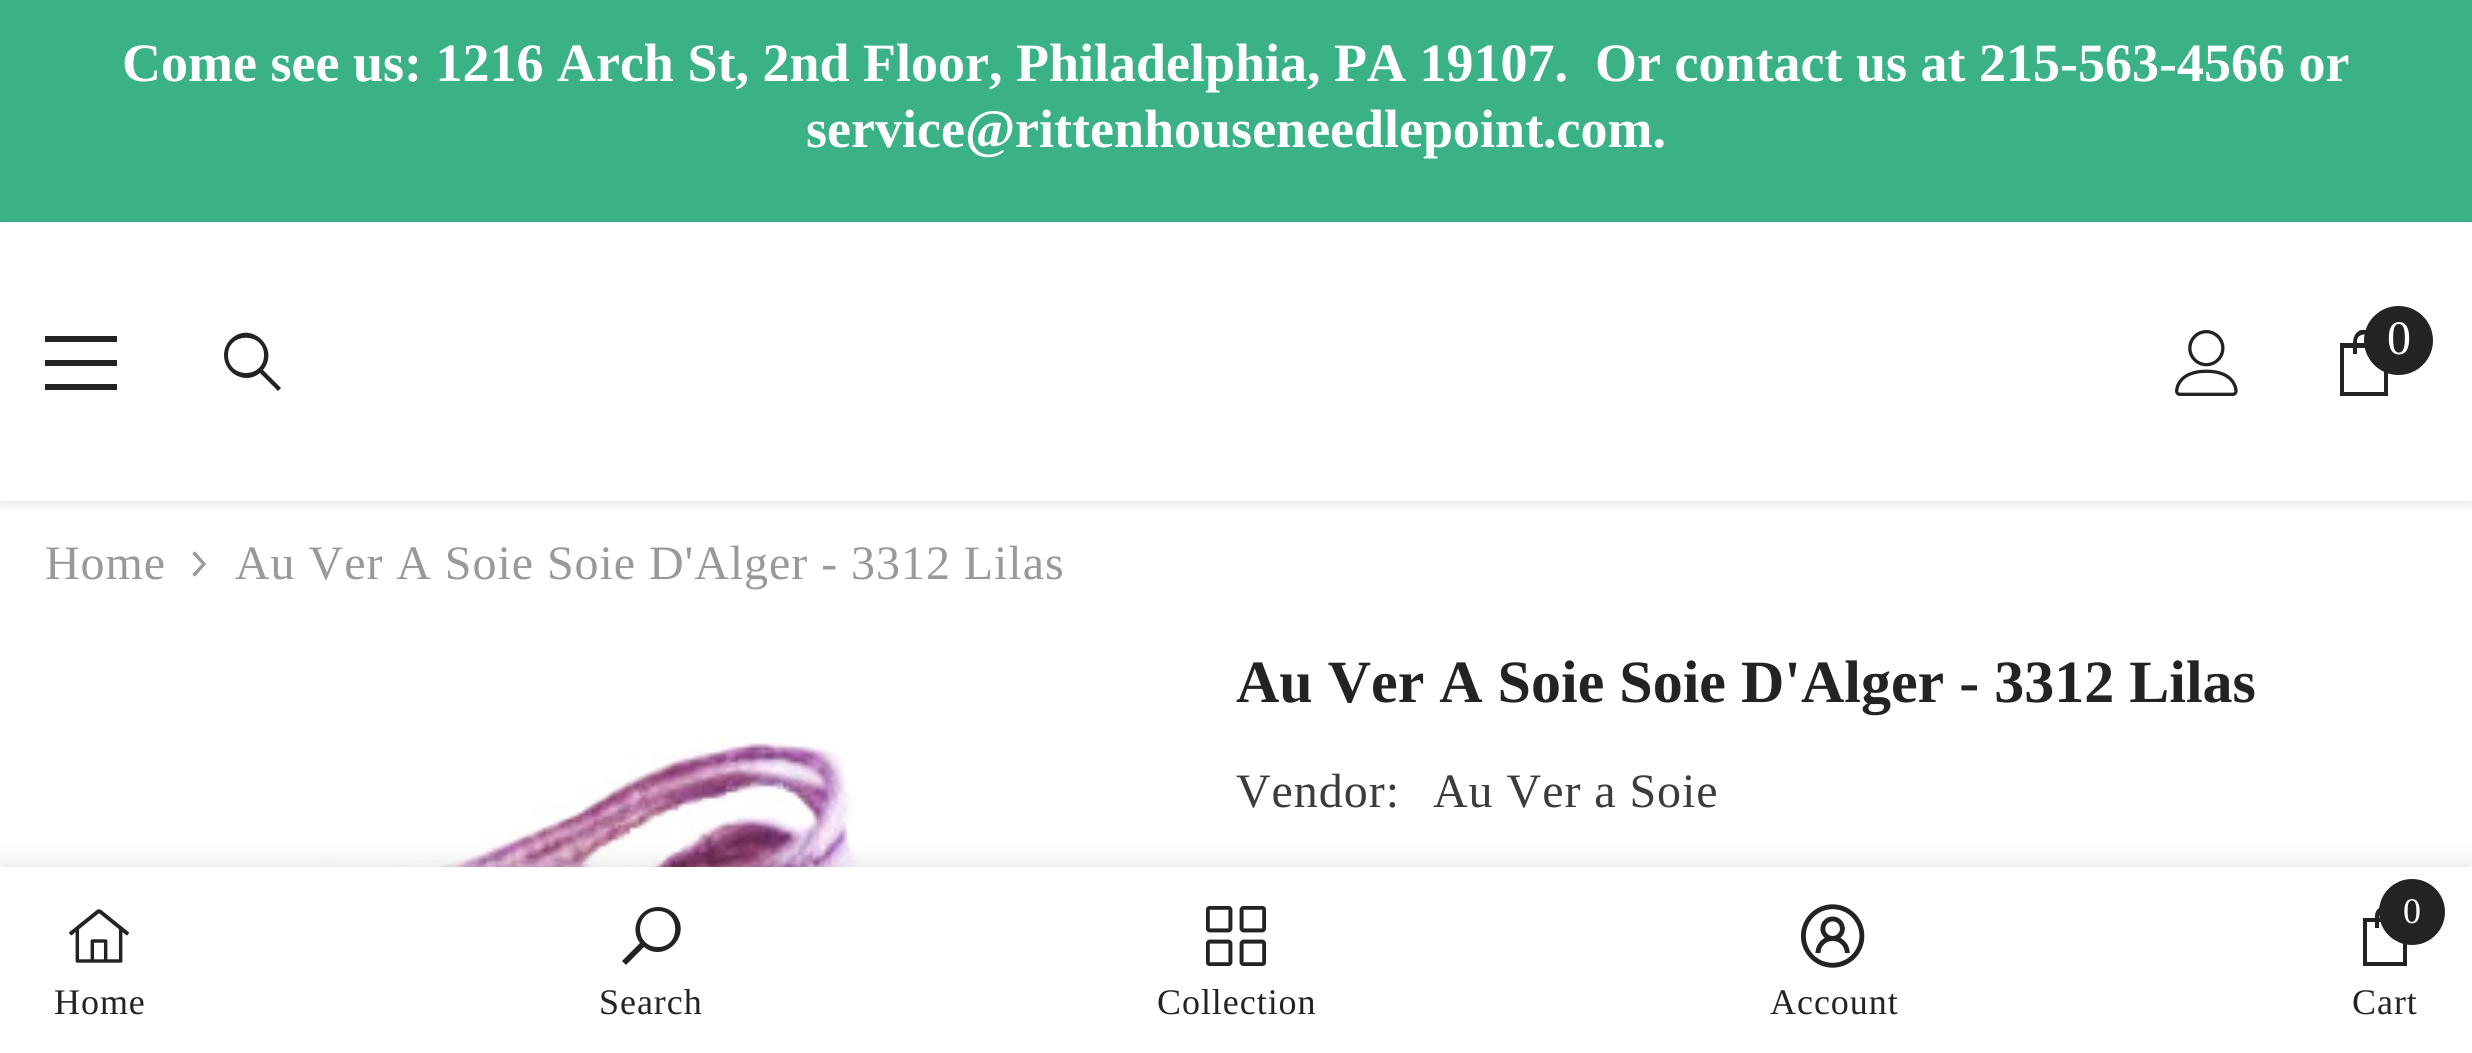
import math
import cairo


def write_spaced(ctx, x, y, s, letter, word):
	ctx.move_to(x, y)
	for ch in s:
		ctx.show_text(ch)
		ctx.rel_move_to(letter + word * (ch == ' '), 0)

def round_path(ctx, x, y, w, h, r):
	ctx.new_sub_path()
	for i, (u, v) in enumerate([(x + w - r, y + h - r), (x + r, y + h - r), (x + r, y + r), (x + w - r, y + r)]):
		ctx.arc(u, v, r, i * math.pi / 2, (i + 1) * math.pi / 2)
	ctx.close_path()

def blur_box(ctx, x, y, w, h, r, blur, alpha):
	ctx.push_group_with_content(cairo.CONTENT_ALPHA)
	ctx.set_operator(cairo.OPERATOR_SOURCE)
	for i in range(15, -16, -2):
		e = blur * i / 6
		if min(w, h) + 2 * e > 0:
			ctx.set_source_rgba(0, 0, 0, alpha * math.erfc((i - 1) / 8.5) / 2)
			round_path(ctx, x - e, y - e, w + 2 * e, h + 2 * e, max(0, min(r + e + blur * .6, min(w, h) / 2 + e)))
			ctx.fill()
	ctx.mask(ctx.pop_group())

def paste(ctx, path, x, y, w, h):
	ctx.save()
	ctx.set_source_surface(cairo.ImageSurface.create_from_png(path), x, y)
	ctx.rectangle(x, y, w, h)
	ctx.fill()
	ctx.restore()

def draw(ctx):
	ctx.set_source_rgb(1, 1, 1)
	ctx.paint()
	ctx.set_source_rgb(0.231, 0.694, 0.525)
	ctx.rectangle(0, 0, 2472, 222)
	ctx.fill()
	ctx.select_font_face('Liberation Serif', cairo.FONT_SLANT_NORMAL, cairo.FONT_WEIGHT_BOLD)
	ctx.set_font_size(54)
	ctx.set_source_rgb(1, 1, 1)
	ctx.move_to(122, 81)
	ctx.show_text('Come see us: 1216 Arch St, 2nd Floor, Philadelphia, PA 19107.  Or contact us at 215-563-4566 or')
	ctx.move_to(806, 147)
	ctx.show_text('service@rittenhouseneedlepoint.com.')
	ctx.save()
	ctx.set_fill_rule(cairo.FILL_RULE_EVEN_ODD)
	ctx.new_path()
	ctx.move_to(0, 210)
	ctx.line_to(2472, 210)
	ctx.line_to(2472, 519)
	ctx.line_to(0, 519)
	ctx.close_path()
	ctx.move_to(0, 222)
	ctx.line_to(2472, 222)
	ctx.line_to(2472, 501)
	ctx.line_to(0, 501)
	ctx.close_path()
	ctx.clip()
	ctx.set_source_rgb(0, 0, 0)
	blur_box(ctx, 0, 225, 2472, 279, 0, 4.5, 0.1)
	ctx.restore()
	ctx.set_source_rgb(0.137, 0.137, 0.137)
	ctx.rectangle(45, 360, 72, 6)
	ctx.rectangle(45, 336, 72, 6)
	ctx.rectangle(45, 384, 72, 6)
	ctx.fill()
	ctx.new_path()
	ctx.move_to(224, 355)
	ctx.curve_to(224, 374, 246, 385, 260, 373)
	ctx.line_to(278, 391)
	ctx.line_to(281, 388)
	ctx.line_to(263, 370)
	ctx.curve_to(281, 348, 250, 319, 230, 340)
	ctx.curve_to(226, 344, 224, 350, 224, 355)
	ctx.close_path()
	ctx.move_to(228, 355)
	ctx.curve_to(228, 332, 264, 332, 264, 355)
	ctx.curve_to(264, 379, 228, 379, 228, 355)
	ctx.close_path()
	ctx.fill()
	paste(ctx, 'media/1.png', 2175, 330, 63, 66)
	ctx.save()
	ctx.rectangle(2331, 330, 66, 66)
	ctx.clip()
	ctx.new_path()
	ctx.move_to(2375, 343)
	ctx.curve_to(2375, 325, 2353, 325, 2353, 343)
	ctx.line_to(2340, 343)
	ctx.line_to(2340, 396)
	ctx.line_to(2388, 396)
	ctx.line_to(2388, 343)
	ctx.close_path()
	ctx.move_to(2357, 341)
	ctx.curve_to(2357, 333, 2371, 331, 2371, 343)
	ctx.line_to(2357, 343)
	ctx.close_path()
	ctx.move_to(2384, 392)
	ctx.line_to(2344, 392)
	ctx.line_to(2344, 348)
	ctx.line_to(2353, 348)
	ctx.line_to(2353, 354)
	ctx.line_to(2357, 354)
	ctx.line_to(2357, 348)
	ctx.line_to(2371, 348)
	ctx.line_to(2371, 354)
	ctx.line_to(2375, 354)
	ctx.line_to(2375, 348)
	ctx.line_to(2384, 348)
	ctx.close_path()
	ctx.fill()
	ctx.restore()
	ctx.arc(2398.5, 340.5, 34.5, 0, 2 * math.pi)
	ctx.fill()
	ctx.select_font_face('Liberation Serif')
	ctx.set_font_size(48)
	ctx.set_source_rgb(1, 1, 1)
	ctx.move_to(2387, 354)
	ctx.show_text('0')
	ctx.set_source_rgb(0.6, 0.6, 0.6)
	write_spaced(ctx, 45, 579, 'Home', 0.95, 0)
	paste(ctx, 'media/2.png', 192, 551, 14, 26)
	write_spaced(ctx, 235, 579, 'Au Ver A Soie Soie D\'Alger - 3312 Lilas', 0.95, 0)
	paste(ctx, 'media/3.png', 293, 735, 577, 132)
	ctx.select_font_face('Liberation Serif', cairo.FONT_SLANT_NORMAL, cairo.FONT_WEIGHT_BOLD)
	ctx.set_font_size(60)
	ctx.set_source_rgb(0.137, 0.137, 0.137)
	ctx.move_to(1236, 702)
	ctx.show_text('Au Ver A Soie Soie D\'Alger - 3312 Lilas')
	ctx.select_font_face('Liberation Serif')
	ctx.set_font_size(48)
	ctx.set_source_rgb(0.235, 0.235, 0.235)
	write_spaced(ctx, 1236, 807, 'Vendor:', 0.95, 0)
	write_spaced(ctx, 1433, 807, 'Au Ver a Soie', 0.95, 0)
	ctx.set_source_rgb(0, 0, 0)
	blur_box(ctx, 0, 867, 2472, 186, 0, 13.5, 0.12)
	ctx.set_source_rgb(1, 1, 1)
	ctx.rectangle(0, 867, 2472, 186)
	ctx.fill()
	paste(ctx, 'media/4.png', 69, 909, 60, 54)
	ctx.set_font_size(36)
	ctx.set_source_rgb(0.137, 0.137, 0.137)
	write_spaced(ctx, 54, 1014, 'Home', 0.95, 0)
	ctx.new_path()
	ctx.move_to(658, 907)
	ctx.curve_to(639, 907, 629, 929, 640, 943)
	ctx.line_to(622, 961)
	ctx.line_to(626, 965)
	ctx.line_to(644, 947)
	ctx.curve_to(665, 964, 694, 934, 674, 913)
	ctx.curve_to(669, 909, 664, 907, 658, 907)
	ctx.close_path()
	ctx.move_to(658, 911)
	ctx.curve_to(681, 911, 681, 947, 658, 947)
	ctx.curve_to(634, 947, 634, 911, 658, 911)
	ctx.close_path()
	ctx.fill()
	write_spaced(ctx, 599, 1014, 'Search', 0.95, 0)
	paste(ctx, 'media/5.png', 1206, 906, 60, 60)
	write_spaced(ctx, 1157, 1014, 'Collection', 0.95, 0)
	paste(ctx, 'media/6.png', 1800, 904, 65, 64)
	write_spaced(ctx, 1770, 1014, 'Account', 0.95, 0)
	paste(ctx, 'media/7.png', 2363, 907, 44, 59)
	ctx.arc(2412, 912, 33, 0, 2 * math.pi)
	ctx.fill()
	ctx.set_source_rgb(1, 1, 1)
	ctx.move_to(2403, 923)
	ctx.show_text('0')
	ctx.set_source_rgb(0.137, 0.137, 0.137)
	write_spaced(ctx, 2352, 1014, 'Cart', 0.95, 0)


surface = cairo.ImageSurface(cairo.FORMAT_RGB24, 2472, 1053)
ctx = cairo.Context(surface)
options = cairo.FontOptions()
options.set_hint_metrics(cairo.HINT_METRICS_OFF)
options.set_hint_style(cairo.HINT_STYLE_NONE)
ctx.set_font_options(options)
ctx.set_miter_limit(4)
draw(ctx)
surface.write_to_png('image.png')
